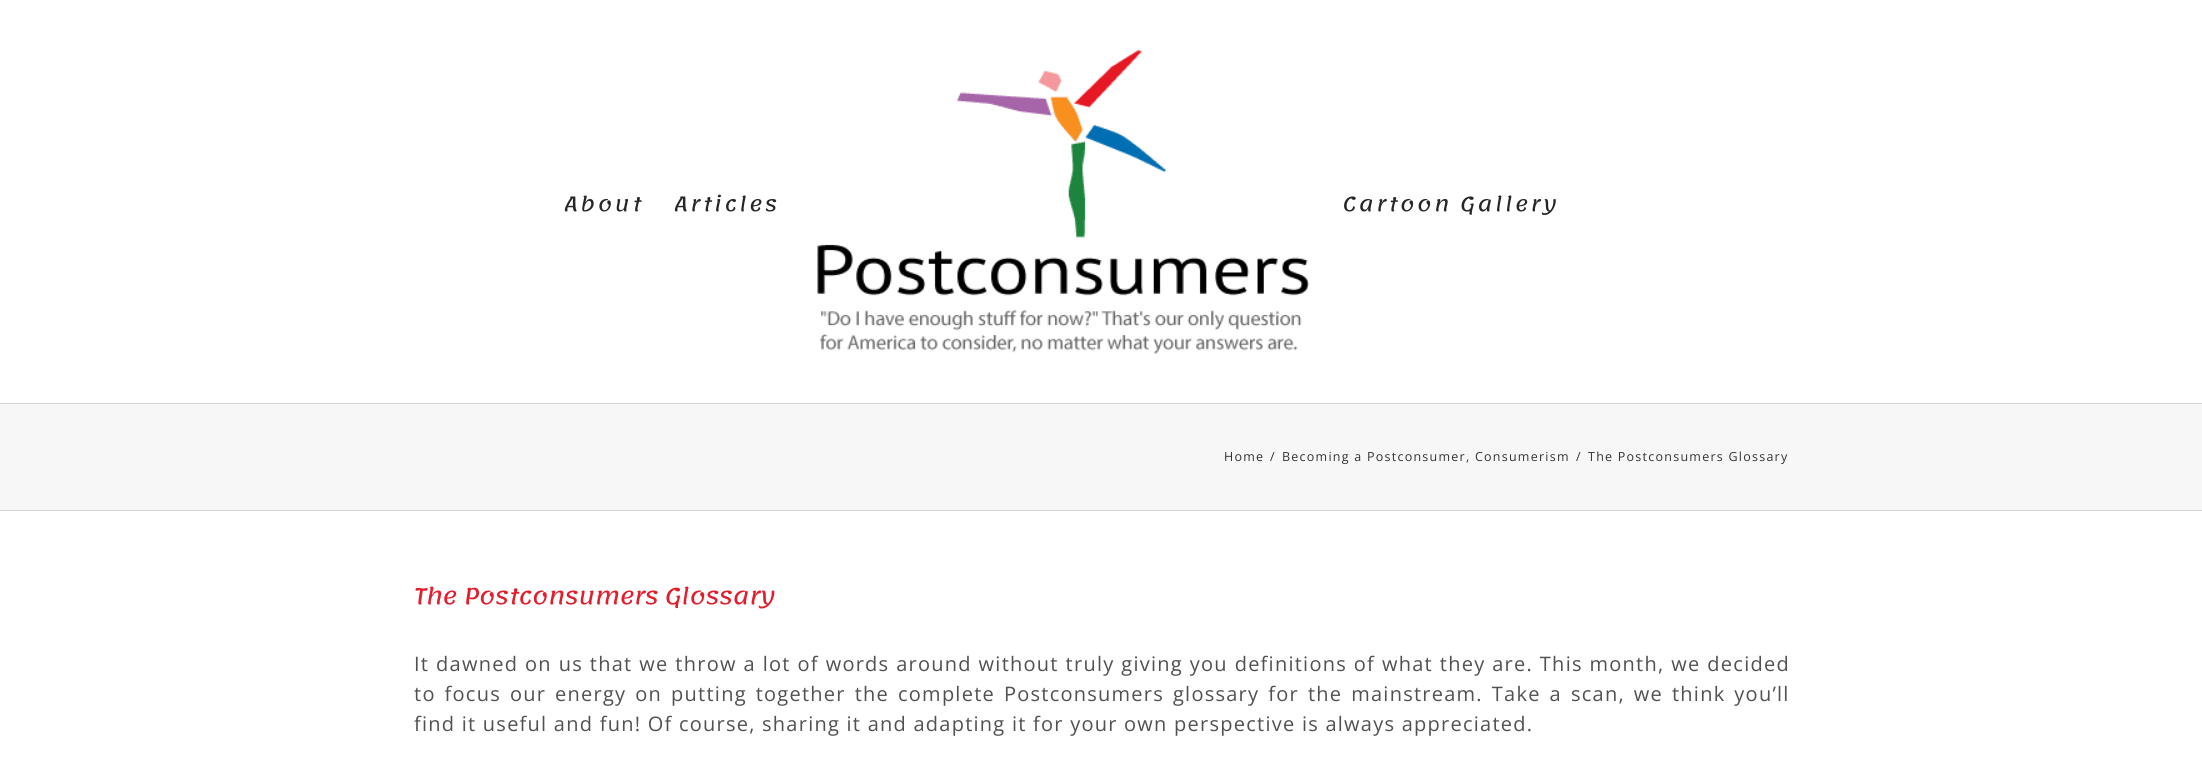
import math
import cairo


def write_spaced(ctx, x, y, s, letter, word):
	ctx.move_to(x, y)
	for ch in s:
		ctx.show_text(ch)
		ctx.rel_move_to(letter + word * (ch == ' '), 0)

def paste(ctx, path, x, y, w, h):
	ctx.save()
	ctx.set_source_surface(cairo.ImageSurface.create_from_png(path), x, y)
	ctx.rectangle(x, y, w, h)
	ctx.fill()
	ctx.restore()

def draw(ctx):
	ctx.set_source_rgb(1, 1, 1)
	ctx.paint()
	ctx.select_font_face('Lemonada')
	ctx.set_font_size(20)
	ctx.set_source_rgb(0.149, 0.149, 0.149)
	write_spaced(ctx, 564, 211, 'About', 2.5, 0)
	write_spaced(ctx, 674, 211, 'Articles', 2.5, 0)
	paste(ctx, 'media/1.png', 817, 49, 492, 305)
	write_spaced(ctx, 1343, 211, 'Cartoon Gallery', 2.5, 0)
	ctx.set_source_rgb(0.965, 0.965, 0.965)
	ctx.rectangle(0, 404, 2202, 106)
	ctx.fill()
	ctx.set_source_rgb(0.824, 0.827, 0.831)
	ctx.rectangle(0, 403, 2202, 1)
	ctx.rectangle(0, 510, 2202, 1)
	ctx.fill()
	ctx.select_font_face('Open Sans')
	ctx.set_font_size(12.5)
	ctx.set_source_rgb(0.2, 0.2, 0.2)
	for x, y, s in [
		(1224, 461, 'Home'),
		(1270, 461, '/'),
		(1282, 461, 'Becoming a Postconsumer, Consumerism'),
		(1576, 461, '/'),
		(1588, 461, 'The Postconsumers Glossary'),
	]:
		write_spaced(ctx, x, y, s, 1.25, 0)
	ctx.select_font_face('Lemonada')
	ctx.set_font_size(22.5)
	ctx.set_source_rgb(0.89, 0.118, 0.173)
	write_spaced(ctx, 414, 604, 'The Postconsumers Glossary', -0.3, 0)
	ctx.select_font_face('Open Sans')
	ctx.set_font_size(20)
	ctx.set_source_rgb(0.318, 0.318, 0.318)
	write_spaced(ctx, 414, 671, 'It dawned on us that we throw a lot of words around without truly giving you definitions of what they are. This month, we decided', 1.25, 0.4)
	write_spaced(ctx, 414, 701, 'to focus our energy on putting together the complete Postconsumers glossary for the mainstream. Take a scan, we think you’ll', 1.25, 2.5)
	write_spaced(ctx, 414, 731, 'find it useful and fun! Of course, sharing it and adapting it for your own perspective is always appreciated.', 1.25, 0)


surface = cairo.ImageSurface(cairo.FORMAT_RGB24, 2202, 761)
ctx = cairo.Context(surface)
options = cairo.FontOptions()
options.set_hint_metrics(cairo.HINT_METRICS_OFF)
options.set_hint_style(cairo.HINT_STYLE_NONE)
ctx.set_font_options(options)
ctx.set_miter_limit(4)
draw(ctx)
surface.write_to_png('image.png')
